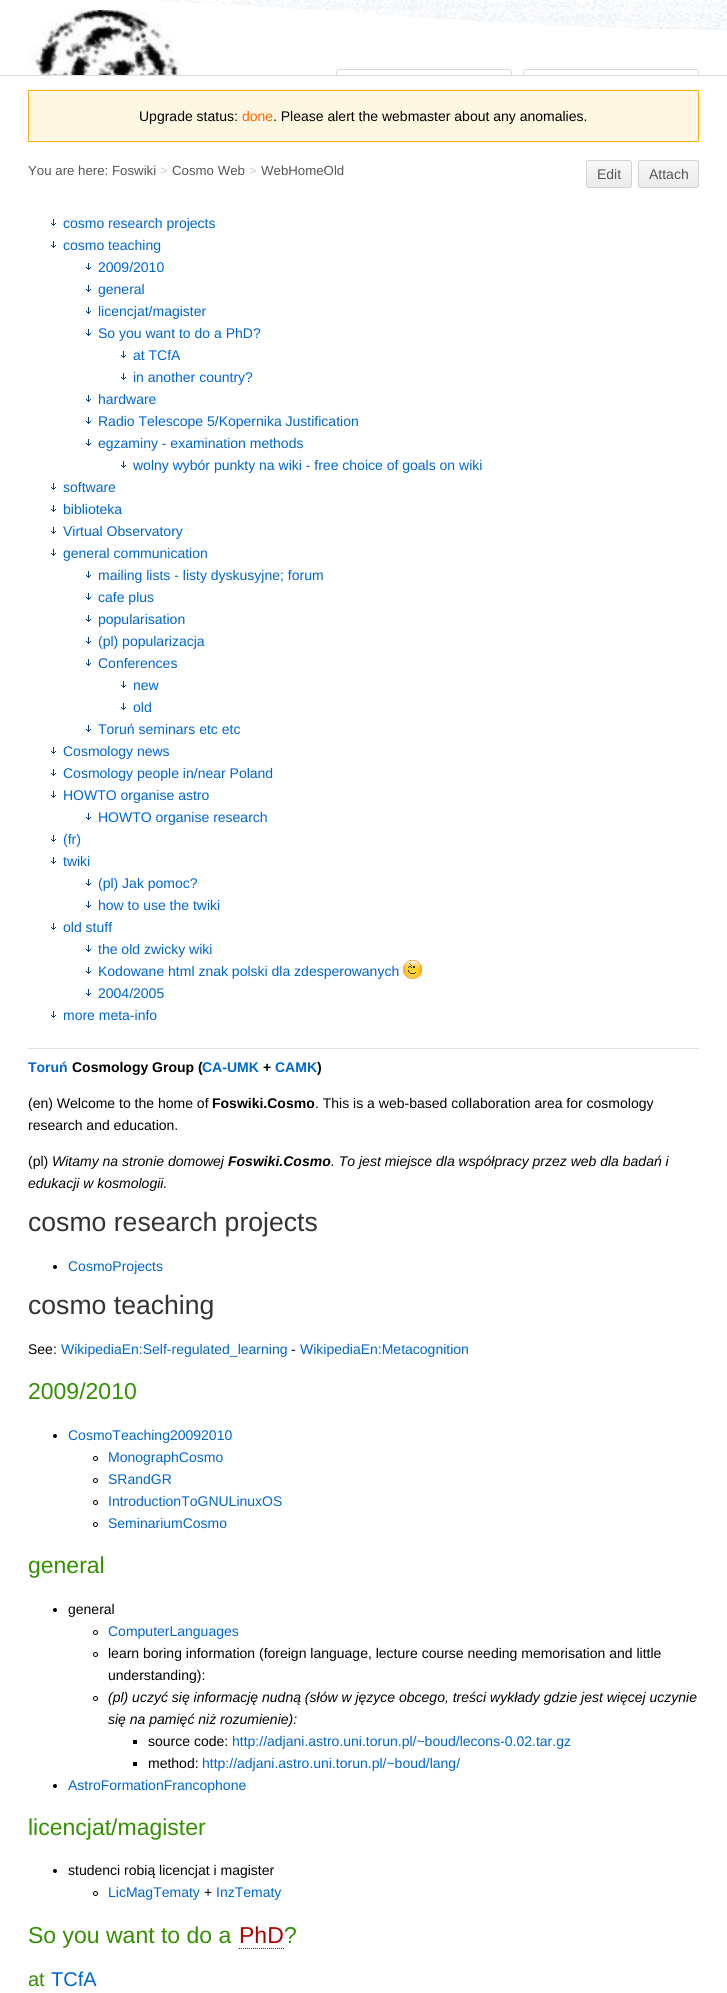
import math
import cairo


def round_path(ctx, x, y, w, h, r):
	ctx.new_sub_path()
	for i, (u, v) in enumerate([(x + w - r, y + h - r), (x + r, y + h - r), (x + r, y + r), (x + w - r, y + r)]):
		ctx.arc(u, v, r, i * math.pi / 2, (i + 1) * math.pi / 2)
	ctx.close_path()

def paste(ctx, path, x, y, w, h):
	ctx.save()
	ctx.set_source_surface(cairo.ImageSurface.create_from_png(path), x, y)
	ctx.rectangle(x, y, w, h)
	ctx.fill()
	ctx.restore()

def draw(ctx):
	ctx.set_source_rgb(0.875, 0.875, 0.875)
	ctx.paint()
	ctx.set_source_rgb(1, 1, 1)
	ctx.rectangle(0, 0, 727, 75)
	ctx.fill()
	paste(ctx, 'media/1.png', 130, 0, 597, 30)
	paste(ctx, 'media/2.png', 30, 10, 150, 65)
	round_path(ctx, 336.5, 69.5, 175, 27, 2.5)
	ctx.set_source_rgb(0.855, 0.855, 0.855)
	ctx.set_line_width(1)
	ctx.stroke()
	round_path(ctx, 523.5, 69.5, 175, 27, 2.5)
	ctx.stroke()
	ctx.set_source_rgb(1, 1, 1)
	ctx.rectangle(0, 76, 727, 1917)
	ctx.fill()
	ctx.set_source_rgb(0.996, 0.969, 0.89)
	ctx.rectangle(28.5, 90.5, 670, 51)
	ctx.fill_preserve()
	ctx.set_source_rgb(0.984, 0.678, 0.09)
	ctx.stroke()
	ctx.select_font_face('Liberation Sans')
	ctx.set_font_size(14)
	ctx.set_source_rgb(0, 0, 0)
	ctx.move_to(139, 121)
	ctx.show_text('Upgrade status:')
	ctx.set_source_rgb(1, 0.4, 0)
	ctx.move_to(242, 121)
	ctx.show_text('done')
	ctx.set_source_rgb(0, 0, 0)
	ctx.move_to(273, 121)
	ctx.show_text('. Please alert the webmaster about any anomalies.')
	ctx.set_font_size(13.25)
	ctx.set_source_rgb(0.337, 0.337, 0.337)
	ctx.move_to(28, 175)
	ctx.show_text('You are here: Foswiki')
	ctx.set_source_rgb(0.8, 0.8, 0.8)
	ctx.move_to(160, 175)
	ctx.show_text('>')
	ctx.set_source_rgb(0.337, 0.337, 0.337)
	ctx.move_to(172, 175)
	ctx.show_text('Cosmo Web')
	ctx.set_source_rgb(0.8, 0.8, 0.8)
	ctx.move_to(249, 175)
	ctx.show_text('>')
	ctx.set_source_rgb(0.337, 0.337, 0.337)
	ctx.move_to(261, 175)
	ctx.show_text('WebHomeOld')
	ctx.save()
	round_path(ctx, 586, 160, 46, 28, 3)
	ctx.clip()
	gradient = cairo.LinearGradient(609, 161, 609, 187)
	gradient.add_color_stop_rgba(0, 0.973, 0.973, 0.973, 1)
	gradient.add_color_stop_rgba(1, 0.922, 0.922, 0.922, 1)
	ctx.set_source(gradient)
	ctx.rectangle(586, 161, 46, 26)
	ctx.fill()
	ctx.restore()
	round_path(ctx, 586.5, 160.5, 45, 27, 2.5)
	ctx.set_source_rgb(0.824, 0.824, 0.824)
	ctx.stroke()
	ctx.set_font_size(14)
	ctx.set_source_rgb(0.337, 0.337, 0.337)
	ctx.move_to(597, 179)
	ctx.show_text('Edit')
	ctx.save()
	round_path(ctx, 638, 160, 61, 28, 3)
	ctx.clip()
	gradient = cairo.LinearGradient(669, 161, 669, 187)
	gradient.add_color_stop_rgba(0, 0.973, 0.973, 0.973, 1)
	gradient.add_color_stop_rgba(1, 0.922, 0.922, 0.922, 1)
	ctx.set_source(gradient)
	ctx.rectangle(638, 161, 61, 26)
	ctx.fill()
	ctx.restore()
	round_path(ctx, 638.5, 160.5, 60, 27, 2.5)
	ctx.set_source_rgb(0.824, 0.824, 0.824)
	ctx.stroke()
	ctx.set_source_rgb(0.337, 0.337, 0.337)
	ctx.move_to(649, 179)
	ctx.show_text('Attach')
	paste(ctx, 'media/3.png', 51, 219, 5, 7)
	ctx.set_source_rgb(0, 0.4, 0.8)
	ctx.move_to(63, 228)
	ctx.show_text('cosmo research projects')
	paste(ctx, 'media/3.png', 51, 241, 5, 7)
	ctx.move_to(63, 250)
	ctx.show_text('cosmo teaching')
	paste(ctx, 'media/3.png', 86, 263, 5, 7)
	ctx.move_to(98, 272)
	ctx.show_text('2009/2010')
	paste(ctx, 'media/3.png', 86, 285, 5, 7)
	ctx.move_to(98, 294)
	ctx.show_text('general')
	paste(ctx, 'media/3.png', 86, 307, 5, 7)
	ctx.move_to(98, 316)
	ctx.show_text('licencjat/magister')
	paste(ctx, 'media/3.png', 86, 329, 5, 7)
	ctx.move_to(98, 338)
	ctx.show_text('So you want to do a PhD?')
	paste(ctx, 'media/3.png', 121, 351, 5, 7)
	ctx.move_to(133, 360)
	ctx.show_text('at TCfA')
	paste(ctx, 'media/3.png', 121, 373, 5, 7)
	ctx.move_to(133, 382)
	ctx.show_text('in another country?')
	paste(ctx, 'media/3.png', 86, 395, 5, 7)
	ctx.move_to(98, 404)
	ctx.show_text('hardware')
	paste(ctx, 'media/3.png', 86, 417, 5, 7)
	ctx.move_to(98, 426)
	ctx.show_text('Radio Telescope 5/Kopernika Justification')
	paste(ctx, 'media/3.png', 86, 439, 5, 7)
	ctx.move_to(98, 448)
	ctx.show_text('egzaminy - examination methods')
	paste(ctx, 'media/3.png', 121, 461, 5, 7)
	ctx.move_to(133, 470)
	ctx.show_text('wolny wybór punkty na wiki - free choice of goals on wiki')
	paste(ctx, 'media/3.png', 51, 483, 5, 7)
	ctx.move_to(63, 492)
	ctx.show_text('software')
	paste(ctx, 'media/3.png', 51, 505, 5, 7)
	ctx.move_to(63, 514)
	ctx.show_text('biblioteka')
	paste(ctx, 'media/3.png', 51, 527, 5, 7)
	ctx.move_to(63, 536)
	ctx.show_text('Virtual Observatory')
	paste(ctx, 'media/3.png', 51, 549, 5, 7)
	ctx.move_to(63, 558)
	ctx.show_text('general communication')
	paste(ctx, 'media/3.png', 86, 571, 5, 7)
	ctx.move_to(98, 580)
	ctx.show_text('mailing lists - listy dyskusyjne; forum')
	paste(ctx, 'media/3.png', 86, 593, 5, 7)
	ctx.move_to(98, 602)
	ctx.show_text('cafe plus')
	paste(ctx, 'media/3.png', 86, 615, 5, 7)
	ctx.move_to(98, 624)
	ctx.show_text('popularisation')
	paste(ctx, 'media/3.png', 86, 637, 5, 7)
	ctx.move_to(98, 646)
	ctx.show_text('(pl) popularizacja')
	paste(ctx, 'media/3.png', 86, 659, 5, 7)
	ctx.move_to(98, 668)
	ctx.show_text('Conferences')
	paste(ctx, 'media/3.png', 121, 681, 5, 7)
	ctx.move_to(133, 690)
	ctx.show_text('new')
	paste(ctx, 'media/3.png', 121, 703, 5, 7)
	ctx.move_to(133, 712)
	ctx.show_text('old')
	paste(ctx, 'media/3.png', 86, 725, 5, 7)
	ctx.move_to(98, 734)
	ctx.show_text('Toruń seminars etc etc')
	paste(ctx, 'media/3.png', 51, 747, 5, 7)
	ctx.move_to(63, 756)
	ctx.show_text('Cosmology news')
	paste(ctx, 'media/3.png', 51, 769, 5, 7)
	ctx.move_to(63, 778)
	ctx.show_text('Cosmology people in/near Poland')
	paste(ctx, 'media/3.png', 51, 791, 5, 7)
	ctx.move_to(63, 800)
	ctx.show_text('HOWTO organise astro')
	paste(ctx, 'media/3.png', 86, 813, 5, 7)
	ctx.move_to(98, 822)
	ctx.show_text('HOWTO organise research')
	paste(ctx, 'media/3.png', 51, 835, 5, 7)
	ctx.move_to(63, 844)
	ctx.show_text('(fr)')
	paste(ctx, 'media/3.png', 51, 857, 5, 7)
	ctx.move_to(63, 866)
	ctx.show_text('twiki')
	paste(ctx, 'media/3.png', 86, 879, 5, 7)
	ctx.move_to(98, 888)
	ctx.show_text('(pl) Jak pomoc?')
	paste(ctx, 'media/3.png', 86, 901, 5, 7)
	ctx.move_to(98, 910)
	ctx.show_text('how to use the twiki')
	paste(ctx, 'media/3.png', 51, 923, 5, 7)
	ctx.move_to(63, 932)
	ctx.show_text('old stuff')
	paste(ctx, 'media/3.png', 86, 945, 5, 7)
	ctx.move_to(98, 954)
	ctx.show_text('the old zwicky wiki')
	paste(ctx, 'media/3.png', 86, 967, 5, 7)
	ctx.move_to(98, 976)
	ctx.show_text('Kodowane html znak polski dla zdesperowanych')
	paste(ctx, 'media/4.png', 403, 960, 19, 19)
	paste(ctx, 'media/3.png', 86, 989, 5, 7)
	ctx.move_to(98, 998)
	ctx.show_text('2004/2005')
	paste(ctx, 'media/3.png', 51, 1011, 5, 7)
	ctx.move_to(63, 1020)
	ctx.show_text('more meta-info')
	ctx.set_source_rgb(0.875, 0.875, 0.875)
	ctx.rectangle(28, 1048, 671, 1)
	ctx.fill()
	ctx.select_font_face('Liberation Sans', cairo.FONT_SLANT_NORMAL, cairo.FONT_WEIGHT_BOLD)
	ctx.set_source_rgb(0, 0.4, 0.8)
	ctx.move_to(28, 1072)
	ctx.show_text('Toruń')
	ctx.set_source_rgb(0, 0, 0)
	ctx.move_to(72, 1072)
	ctx.show_text('Cosmology Group (')
	ctx.set_source_rgb(0, 0.4, 0.8)
	ctx.move_to(202, 1072)
	ctx.show_text('CA-UMK')
	ctx.set_source_rgb(0, 0, 0)
	ctx.move_to(263, 1072)
	ctx.show_text('+')
	ctx.set_source_rgb(0, 0.4, 0.8)
	ctx.move_to(275, 1072)
	ctx.show_text('CAMK')
	ctx.set_source_rgb(0, 0, 0)
	ctx.move_to(317, 1072)
	ctx.show_text(')')
	ctx.select_font_face('Liberation Sans')
	ctx.move_to(28, 1108)
	ctx.show_text('(en) Welcome to the home of')
	ctx.select_font_face('Liberation Sans', cairo.FONT_SLANT_NORMAL, cairo.FONT_WEIGHT_BOLD)
	ctx.move_to(212, 1108)
	ctx.show_text('Foswiki.Cosmo')
	ctx.select_font_face('Liberation Sans')
	for x, y, s in [
		(315, 1108, '. This is a web-based collaboration area for cosmology'),
		(28, 1130, 'research and education.'),
		(28, 1166, '(pl)'),
	]:
		ctx.move_to(x, y)
		ctx.show_text(s)
	ctx.select_font_face('Liberation Sans', cairo.FONT_SLANT_ITALIC)
	ctx.move_to(52, 1166)
	ctx.show_text('Witamy na stronie domowej')
	ctx.select_font_face('Liberation Sans', cairo.FONT_SLANT_ITALIC, cairo.FONT_WEIGHT_BOLD)
	ctx.move_to(228, 1166)
	ctx.show_text('Foswiki.Cosmo')
	ctx.select_font_face('Liberation Sans', cairo.FONT_SLANT_ITALIC)
	ctx.move_to(331, 1166)
	ctx.show_text('. To jest miejsce dla współpracy przez web dla badań i')
	ctx.move_to(28, 1188)
	ctx.show_text('edukacji w kosmologii.')
	ctx.select_font_face('Liberation Sans')
	ctx.set_font_size(26.6)
	ctx.set_source_rgb(0.2, 0.2, 0.2)
	ctx.move_to(28, 1231)
	ctx.show_text('cosmo research projects')
	ctx.set_source_rgb(0, 0, 0)
	ctx.new_path()
	ctx.arc(55, 1267, 2, 0, 2 * math.pi)
	ctx.fill()
	ctx.set_font_size(14)
	ctx.set_source_rgb(0, 0.4, 0.8)
	ctx.move_to(68, 1271)
	ctx.show_text('CosmoProjects')
	ctx.set_font_size(26.6)
	ctx.set_source_rgb(0.2, 0.2, 0.2)
	ctx.move_to(28, 1314)
	ctx.show_text('cosmo teaching')
	ctx.set_font_size(14)
	ctx.set_source_rgb(0, 0, 0)
	ctx.move_to(28, 1354)
	ctx.show_text('See:')
	ctx.set_source_rgb(0, 0.4, 0.8)
	ctx.move_to(61, 1354)
	ctx.show_text('WikipediaEn:Self-regulated_learning')
	ctx.set_source_rgb(0, 0, 0)
	ctx.move_to(291, 1354)
	ctx.show_text('-')
	ctx.set_source_rgb(0, 0.4, 0.8)
	ctx.move_to(300, 1354)
	ctx.show_text('WikipediaEn:Metacognition')
	ctx.set_font_size(23)
	ctx.set_source_rgb(0.2, 0.565, 0)
	ctx.move_to(28, 1399)
	ctx.show_text('2009/2010')
	ctx.set_source_rgb(0, 0, 0)
	ctx.new_path()
	ctx.arc(55, 1436, 2, 0, 2 * math.pi)
	ctx.fill()
	ctx.set_font_size(14)
	ctx.set_source_rgb(0, 0.4, 0.8)
	ctx.move_to(68, 1440)
	ctx.show_text('CosmoTeaching20092010')
	ctx.new_path()
	ctx.arc(95.5, 1458.5, 2, 0, 2 * math.pi)
	ctx.set_source_rgb(0, 0, 0)
	ctx.stroke()
	ctx.set_source_rgb(0, 0.4, 0.8)
	ctx.move_to(108, 1462)
	ctx.show_text('MonographCosmo')
	ctx.new_path()
	ctx.arc(95.5, 1480.5, 2, 0, 2 * math.pi)
	ctx.set_source_rgb(0, 0, 0)
	ctx.stroke()
	ctx.set_source_rgb(0, 0.4, 0.8)
	ctx.move_to(108, 1484)
	ctx.show_text('SRandGR')
	ctx.new_path()
	ctx.arc(95.5, 1502.5, 2, 0, 2 * math.pi)
	ctx.set_source_rgb(0, 0, 0)
	ctx.stroke()
	ctx.set_source_rgb(0, 0.4, 0.8)
	ctx.move_to(108, 1506)
	ctx.show_text('IntroductionToGNULinuxOS')
	ctx.new_path()
	ctx.arc(95.5, 1524.5, 2, 0, 2 * math.pi)
	ctx.set_source_rgb(0, 0, 0)
	ctx.stroke()
	ctx.set_source_rgb(0, 0.4, 0.8)
	ctx.move_to(108, 1528)
	ctx.show_text('SeminariumCosmo')
	ctx.set_font_size(23)
	ctx.set_source_rgb(0.2, 0.565, 0)
	ctx.move_to(28, 1573)
	ctx.show_text('general')
	ctx.set_source_rgb(0, 0, 0)
	ctx.new_path()
	ctx.arc(55, 1610, 2, 0, 2 * math.pi)
	ctx.fill()
	ctx.set_font_size(14)
	ctx.move_to(68, 1614)
	ctx.show_text('general')
	ctx.new_path()
	ctx.arc(95.5, 1632.5, 2, 0, 2 * math.pi)
	ctx.stroke()
	ctx.set_source_rgb(0, 0.4, 0.8)
	ctx.move_to(108, 1636)
	ctx.show_text('ComputerLanguages')
	ctx.new_path()
	ctx.arc(95.5, 1654.5, 2, 0, 2 * math.pi)
	ctx.set_source_rgb(0, 0, 0)
	ctx.stroke()
	ctx.move_to(108, 1658)
	ctx.show_text('learn boring information (foreign language, lecture course needing memorisation and little')
	ctx.move_to(108, 1680)
	ctx.show_text('understanding):')
	ctx.new_path()
	ctx.arc(95.5, 1698.5, 2, 0, 2 * math.pi)
	ctx.stroke()
	ctx.select_font_face('Liberation Sans', cairo.FONT_SLANT_ITALIC)
	ctx.move_to(108, 1702)
	ctx.show_text('(pl) uczyć się informację nudną (słów w języce obcego, treści wykłady gdzie jest więcej uczynie')
	ctx.move_to(108, 1724)
	ctx.show_text('się na pamięć niż rozumienie):')
	ctx.rectangle(133, 1740, 4, 4)
	ctx.fill()
	ctx.select_font_face('Liberation Sans')
	ctx.move_to(148, 1746)
	ctx.show_text('source code:')
	ctx.set_source_rgb(0, 0.4, 0.8)
	ctx.move_to(232, 1746)
	ctx.show_text('http://adjani.astro.uni.torun.pl/~boud/lecons-0.02.tar.gz')
	ctx.set_source_rgb(0, 0, 0)
	ctx.rectangle(133, 1762, 4, 4)
	ctx.fill()
	ctx.move_to(148, 1768)
	ctx.show_text('method:')
	ctx.set_source_rgb(0, 0.4, 0.8)
	ctx.move_to(202, 1768)
	ctx.show_text('http://adjani.astro.uni.torun.pl/~boud/lang/')
	ctx.set_source_rgb(0, 0, 0)
	ctx.new_path()
	ctx.arc(55, 1786, 2, 0, 2 * math.pi)
	ctx.fill()
	ctx.set_source_rgb(0, 0.4, 0.8)
	ctx.move_to(68, 1790)
	ctx.show_text('AstroFormationFrancophone')
	ctx.set_font_size(23)
	ctx.set_source_rgb(0.2, 0.565, 0)
	ctx.move_to(28, 1835)
	ctx.show_text('licencjat/magister')
	ctx.set_source_rgb(0, 0, 0)
	ctx.new_path()
	ctx.arc(55, 1871, 2, 0, 2 * math.pi)
	ctx.fill()
	ctx.set_font_size(14)
	ctx.move_to(68, 1875)
	ctx.show_text('studenci robią licencjat i magister')
	ctx.new_path()
	ctx.arc(95.5, 1893.5, 2, 0, 2 * math.pi)
	ctx.stroke()
	ctx.set_source_rgb(0, 0.4, 0.8)
	ctx.move_to(108, 1897)
	ctx.show_text('LicMagTematy')
	ctx.set_source_rgb(0, 0, 0)
	ctx.move_to(204, 1897)
	ctx.show_text('+')
	ctx.set_source_rgb(0, 0.4, 0.8)
	ctx.move_to(216, 1897)
	ctx.show_text('InzTematy')
	ctx.set_font_size(23)
	ctx.set_source_rgb(0.2, 0.565, 0)
	ctx.move_to(28, 1943)
	ctx.show_text('So you want to do a')
	ctx.set_source_rgb(0.69, 0, 0)
	ctx.move_to(239, 1943)
	ctx.show_text('PhD')
	ctx.new_path()
	ctx.move_to(239, 1948.5)
	ctx.line_to(284, 1948.5)
	ctx.set_dash([1, 1])
	ctx.stroke()
	ctx.set_source_rgb(0.2, 0.565, 0)
	ctx.move_to(284, 1943)
	ctx.show_text('?')
	ctx.set_font_size(20)
	ctx.move_to(28, 1986)
	ctx.show_text('at')
	ctx.set_source_rgb(0, 0.4, 0.8)
	ctx.move_to(51, 1986)
	ctx.show_text('TCfA')


surface = cairo.ImageSurface(cairo.FORMAT_RGB24, 727, 1993)
ctx = cairo.Context(surface)
options = cairo.FontOptions()
options.set_hint_metrics(cairo.HINT_METRICS_OFF)
options.set_hint_style(cairo.HINT_STYLE_NONE)
ctx.set_font_options(options)
ctx.set_miter_limit(4)
draw(ctx)
surface.write_to_png('image.png')
